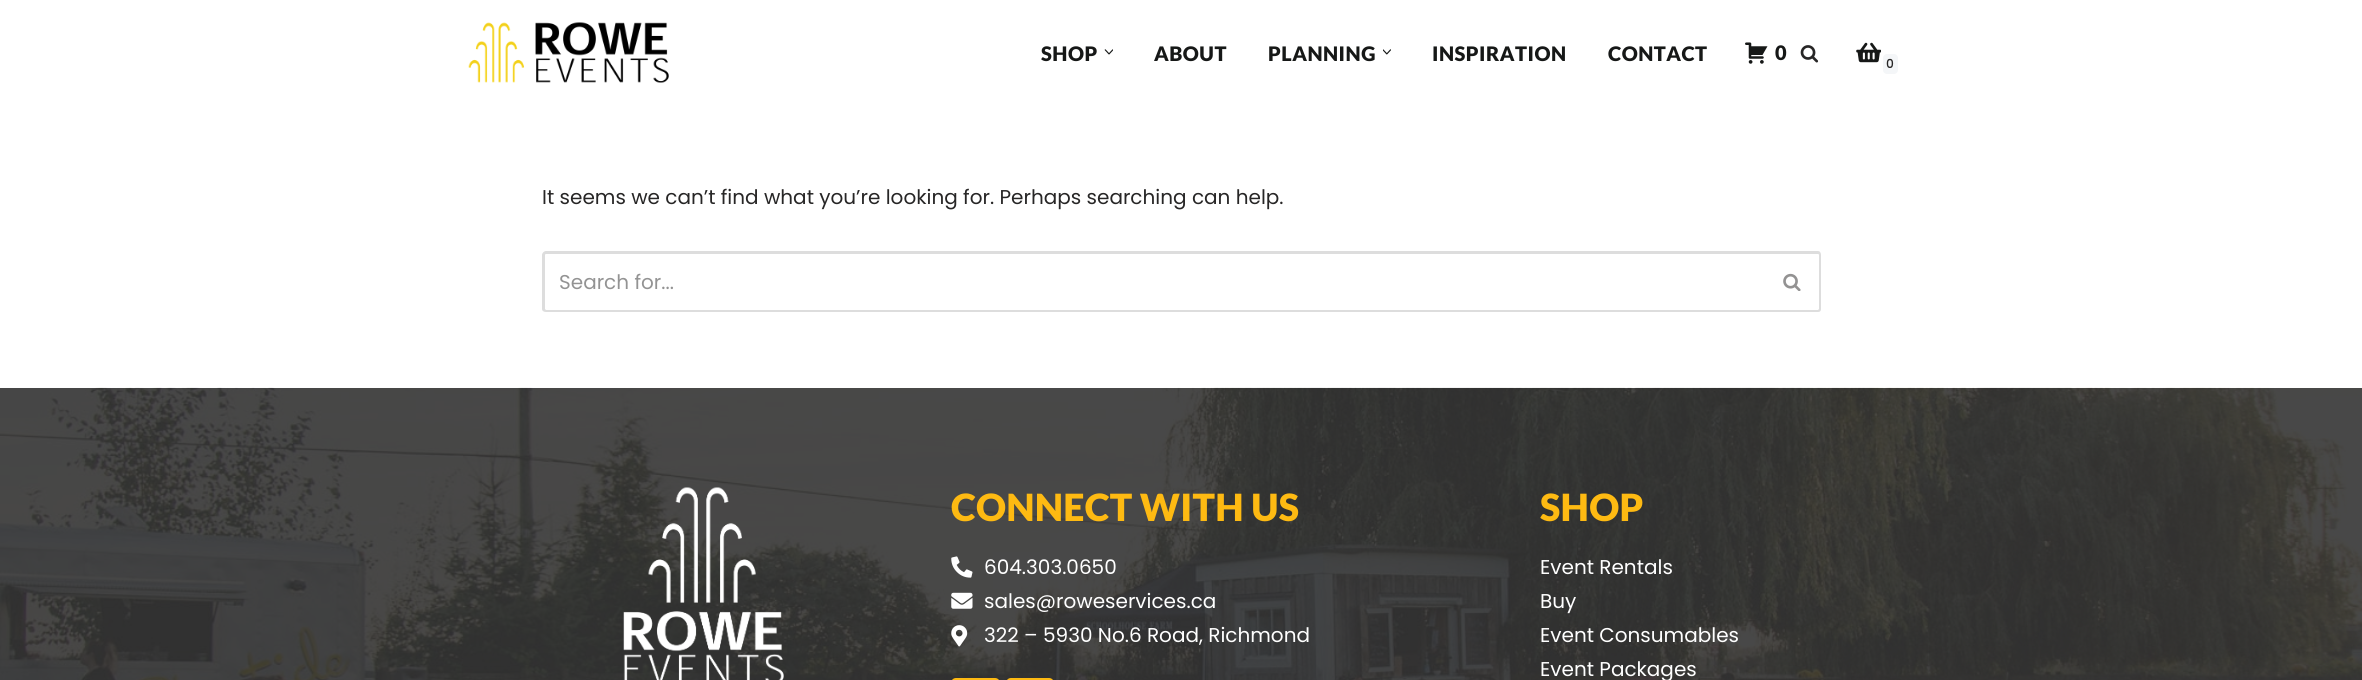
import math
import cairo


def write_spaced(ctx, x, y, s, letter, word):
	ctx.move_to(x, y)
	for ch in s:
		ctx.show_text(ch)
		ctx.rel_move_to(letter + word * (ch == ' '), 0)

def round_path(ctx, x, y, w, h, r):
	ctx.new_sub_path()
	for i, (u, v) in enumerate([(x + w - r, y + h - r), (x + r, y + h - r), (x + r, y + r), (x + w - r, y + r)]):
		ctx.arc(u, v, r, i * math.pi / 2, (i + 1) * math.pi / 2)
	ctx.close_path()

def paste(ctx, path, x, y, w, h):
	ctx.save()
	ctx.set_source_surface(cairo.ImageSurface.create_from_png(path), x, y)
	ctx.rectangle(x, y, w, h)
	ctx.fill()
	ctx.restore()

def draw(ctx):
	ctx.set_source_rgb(1, 1, 1)
	ctx.paint()
	paste(ctx, 'media/1.png', 468, 22, 201, 61)
	ctx.select_font_face('Lato Black')
	ctx.set_font_size(20)
	ctx.set_source_rgb(0.086, 0.094, 0.09)
	write_spaced(ctx, 1041, 61, 'SHOP', 0.5, 0)
	paste(ctx, 'media/2.png', 1104, 49, 9, 6)
	write_spaced(ctx, 1154, 61, 'ABOUT', 0.5, 0)
	write_spaced(ctx, 1268, 61, 'PLANNING', 0.5, 0)
	paste(ctx, 'media/3.png', 1383, 49, 8, 6)
	write_spaced(ctx, 1432, 61, 'INSPIRATION', 0.5, 0)
	write_spaced(ctx, 1608, 61, 'CONTACT', 0.5, 0)
	paste(ctx, 'media/4.png', 1745, 42, 23, 22)
	write_spaced(ctx, 1775, 60, '0', 0.5, 0)
	paste(ctx, 'media/5.png', 1800, 45, 19, 18)
	paste(ctx, 'media/6.png', 1856, 42, 25, 21)
	ctx.set_source_rgb(0.957, 0.961, 0.969)
	round_path(ctx, 1883, 54, 15, 20, 4)
	ctx.fill()
	ctx.select_font_face('Poppins', cairo.FONT_SLANT_NORMAL, cairo.FONT_WEIGHT_BOLD)
	ctx.set_font_size(12)
	ctx.set_source_rgb(0.153, 0.149, 0.149)
	ctx.move_to(1886, 68)
	ctx.show_text('0')
	ctx.select_font_face('Poppins')
	ctx.set_font_size(20)
	ctx.move_to(542, 204)
	ctx.show_text('It seems we can’t find what you’re looking for. Perhaps searching can help.')
	ctx.set_source_rgb(0.867, 0.867, 0.867)
	ctx.set_fill_rule(cairo.FILL_RULE_EVEN_ODD)
	ctx.new_path()
	ctx.move_to(546, 251)
	ctx.line_to(1765, 251)
	ctx.line_to(1765, 312)
	ctx.line_to(546, 312)
	ctx.curve_to(544, 312, 542, 311, 542, 309)
	ctx.line_to(542, 255)
	ctx.curve_to(542, 253, 544, 251, 546, 251)
	ctx.close_path()
	ctx.move_to(546, 254)
	ctx.line_to(1765, 254)
	ctx.line_to(1765, 310)
	ctx.line_to(546, 310)
	ctx.curve_to(546, 310, 545, 309, 545, 309)
	ctx.line_to(545, 255)
	ctx.curve_to(545, 254, 546, 254, 546, 254)
	ctx.close_path()
	ctx.fill()
	ctx.set_source_rgb(0.576, 0.576, 0.576)
	ctx.move_to(559, 289)
	ctx.show_text('Search for...')
	ctx.set_source_rgb(0.867, 0.867, 0.867)
	ctx.new_path()
	ctx.move_to(1765, 251)
	ctx.line_to(1818, 251)
	ctx.curve_to(1820, 251, 1821, 253, 1821, 255)
	ctx.line_to(1821, 309)
	ctx.curve_to(1821, 311, 1820, 312, 1818, 312)
	ctx.line_to(1765, 312)
	ctx.close_path()
	ctx.move_to(1765, 254)
	ctx.line_to(1818, 254)
	ctx.curve_to(1818, 254, 1819, 254, 1819, 255)
	ctx.line_to(1819, 309)
	ctx.curve_to(1819, 309, 1818, 310, 1818, 310)
	ctx.line_to(1765, 310)
	ctx.close_path()
	ctx.fill()
	paste(ctx, 'media/7.png', 1783, 273, 18, 18)
	ctx.set_source_rgb(0.2, 0.2, 0.2)
	ctx.rectangle(0, 388, 2362, 292)
	ctx.fill()
	paste(ctx, 'media/8.png', 0, 387, 2362, 293)
	paste(ctx, 'media/9.png', 623, 487, 161, 193)
	ctx.select_font_face('Lato Black')
	ctx.set_font_size(37.5)
	ctx.set_source_rgb(0.996, 0.729, 0.071)
	write_spaced(ctx, 951, 521, 'CONNECT WITH US', 0.25, 0)
	paste(ctx, 'media/10.png', 951, 556, 22, 22)
	ctx.select_font_face('Poppins')
	ctx.set_font_size(20)
	ctx.set_source_rgb(1, 1, 1)
	ctx.move_to(984, 574)
	ctx.show_text('604.303.0650')
	paste(ctx, 'media/11.png', 951, 592, 22, 17)
	ctx.move_to(984, 608)
	ctx.show_text('sales@roweservices.ca')
	paste(ctx, 'media/12.png', 951, 625, 17, 22)
	ctx.move_to(984, 642)
	ctx.show_text('322 – 5930 No.6 Road, Richmond')
	ctx.set_source_rgb(0.996, 0.729, 0.071)
	round_path(ctx, 951, 678, 49, 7, 5)
	ctx.fill()
	round_path(ctx, 1006, 678, 48, 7, 5)
	ctx.fill()
	ctx.select_font_face('Lato Black')
	ctx.set_font_size(37.5)
	write_spaced(ctx, 1540, 521, 'SHOP', 0.25, 0)
	ctx.select_font_face('Poppins')
	ctx.set_font_size(20)
	ctx.set_source_rgb(1, 1, 1)
	for x, y, s in [
		(1540, 574, 'Event Rentals'),
		(1540, 608, 'Buy'),
		(1540, 642, 'Event Consumables'),
		(1540, 676, 'Event Packages'),
	]:
		ctx.move_to(x, y)
		ctx.show_text(s)


surface = cairo.ImageSurface(cairo.FORMAT_RGB24, 2362, 680)
ctx = cairo.Context(surface)
options = cairo.FontOptions()
options.set_hint_metrics(cairo.HINT_METRICS_OFF)
options.set_hint_style(cairo.HINT_STYLE_NONE)
ctx.set_font_options(options)
ctx.set_miter_limit(4)
draw(ctx)
surface.write_to_png('image.png')
